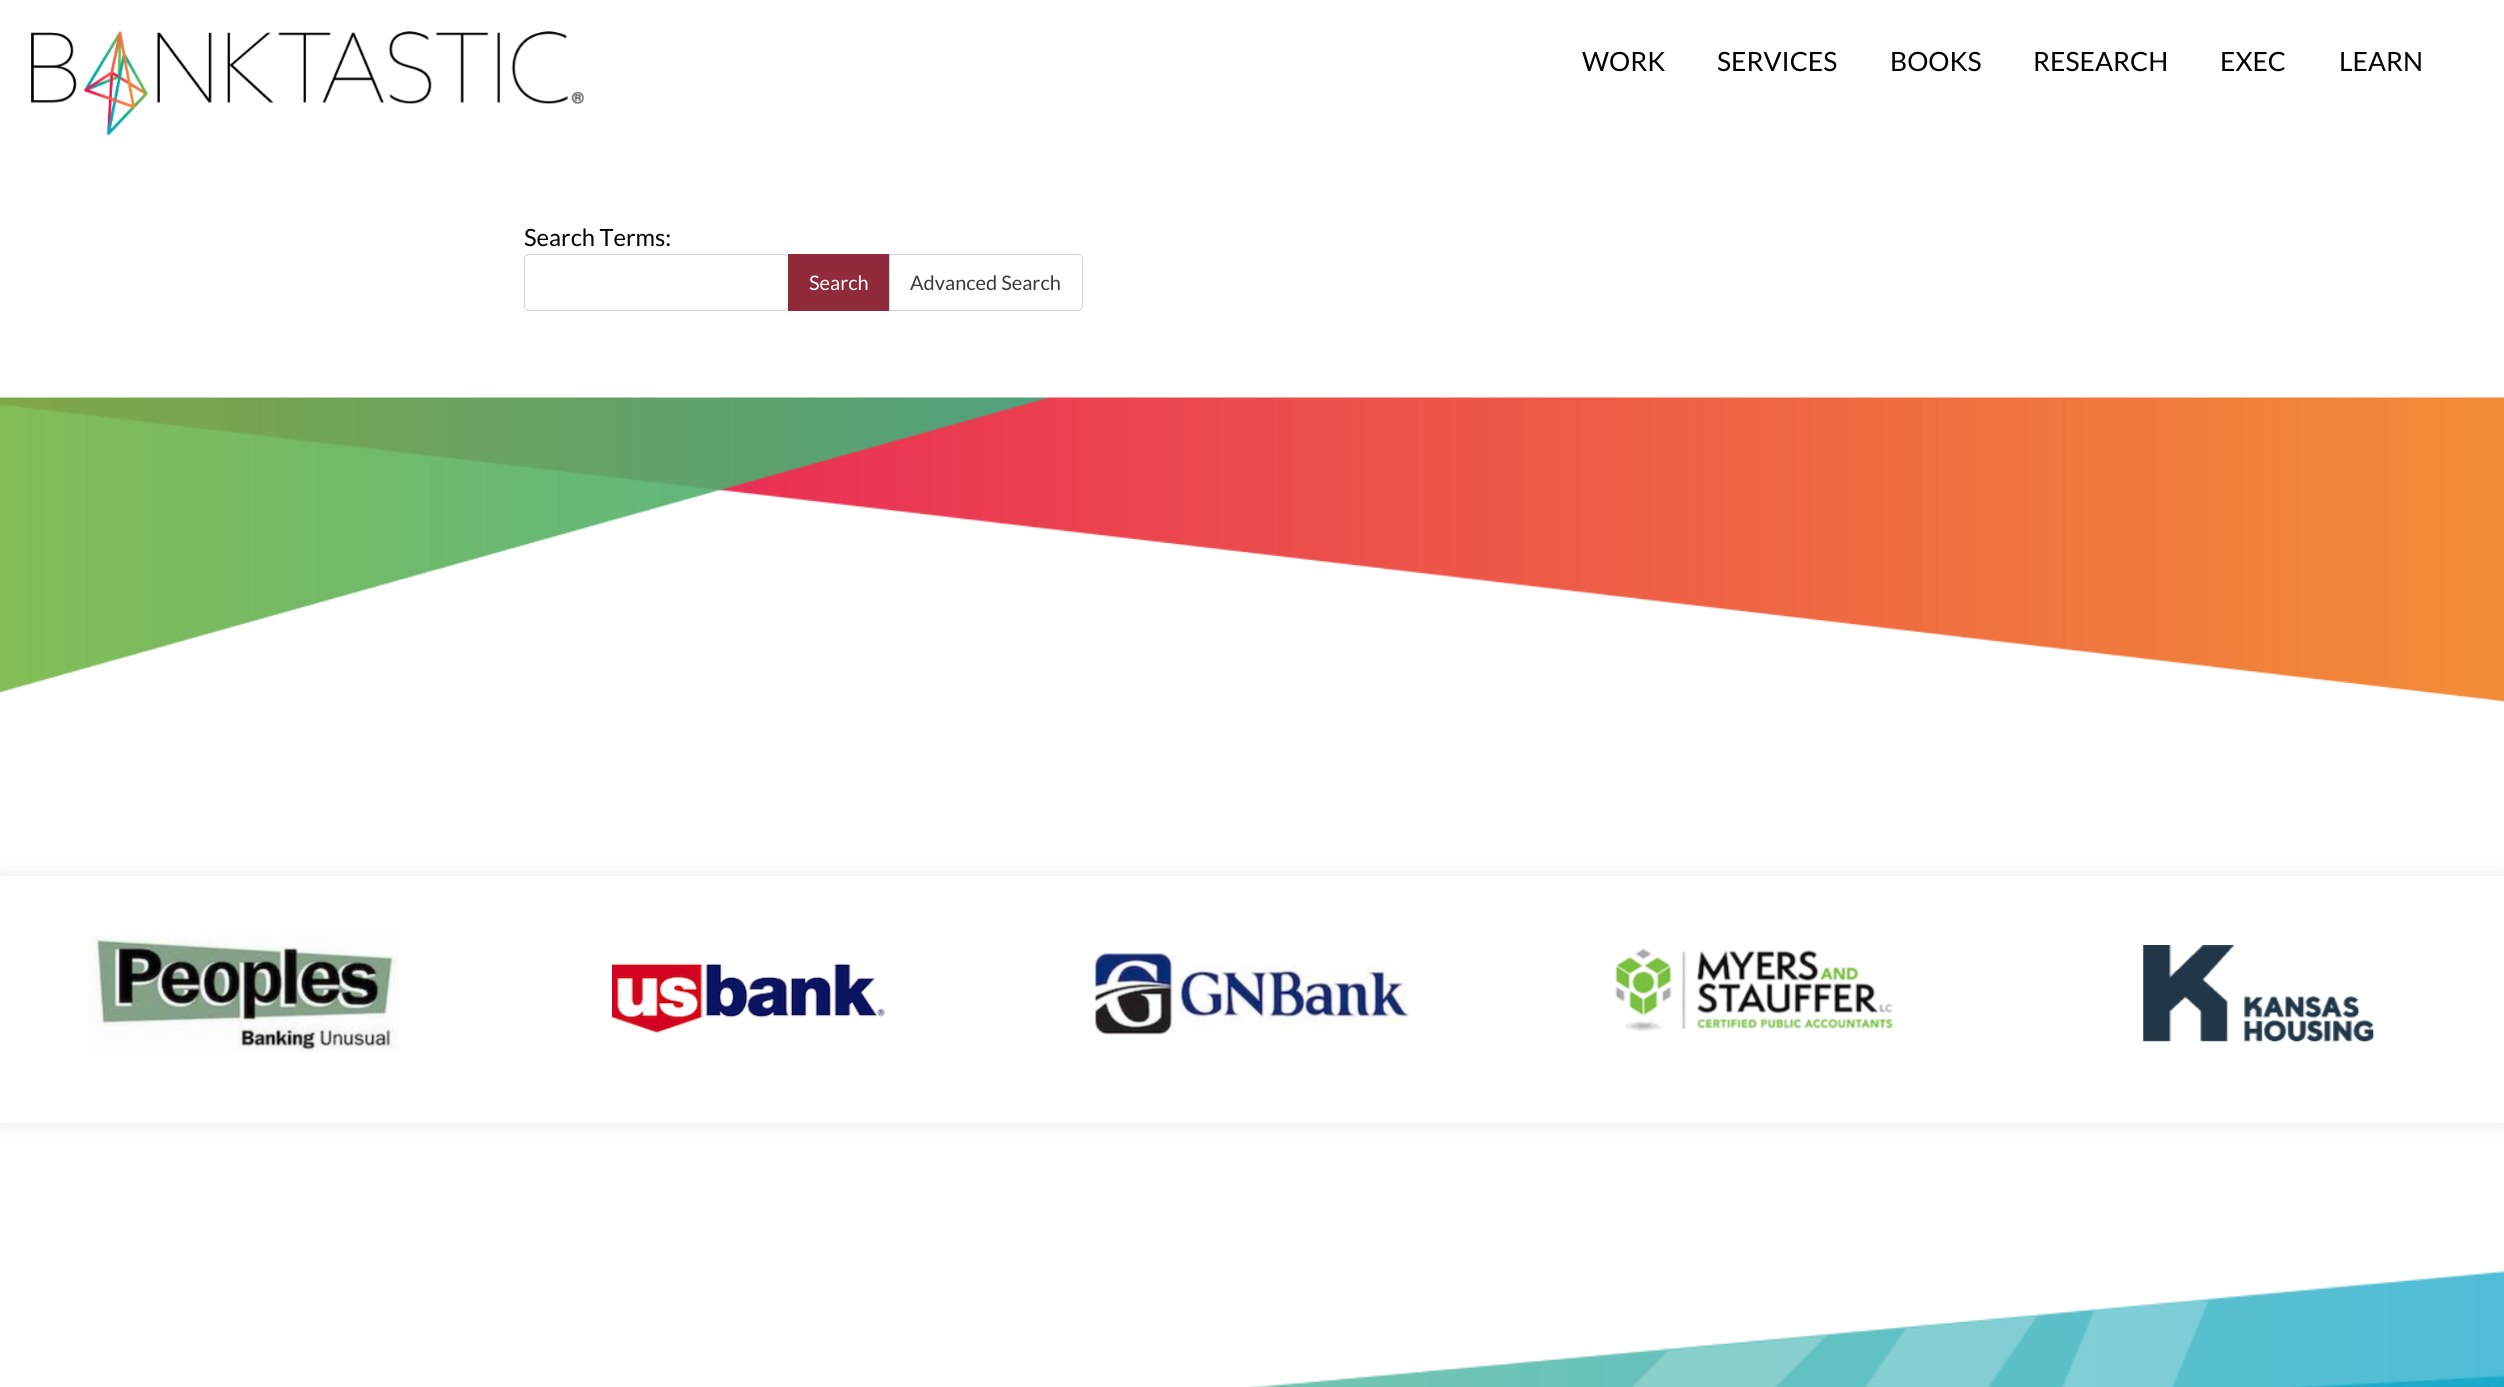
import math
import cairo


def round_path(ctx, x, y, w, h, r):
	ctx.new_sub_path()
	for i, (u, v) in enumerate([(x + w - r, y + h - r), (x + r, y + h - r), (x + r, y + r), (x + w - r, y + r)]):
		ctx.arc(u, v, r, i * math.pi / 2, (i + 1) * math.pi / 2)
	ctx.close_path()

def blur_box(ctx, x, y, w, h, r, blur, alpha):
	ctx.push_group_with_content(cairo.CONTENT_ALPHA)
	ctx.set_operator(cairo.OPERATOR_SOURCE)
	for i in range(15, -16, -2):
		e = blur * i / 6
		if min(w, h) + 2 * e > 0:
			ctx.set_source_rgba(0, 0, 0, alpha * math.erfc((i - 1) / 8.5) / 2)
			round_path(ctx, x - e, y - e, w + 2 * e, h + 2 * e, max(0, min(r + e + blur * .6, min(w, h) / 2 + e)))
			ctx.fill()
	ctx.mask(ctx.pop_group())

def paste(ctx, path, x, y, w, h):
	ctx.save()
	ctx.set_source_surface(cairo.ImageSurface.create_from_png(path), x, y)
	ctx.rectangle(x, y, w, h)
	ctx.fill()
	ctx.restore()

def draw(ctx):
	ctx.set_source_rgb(1, 1, 1)
	ctx.paint()
	paste(ctx, 'media/1.png', 31, 31, 553, 104)
	ctx.select_font_face('Lato')
	ctx.set_font_size(26.5)
	ctx.set_source_rgb(0, 0, 0)
	for x, y, s in [
		(1582, 71, 'WORK'),
		(1717, 71, 'SERVICES'),
		(1890, 71, 'BOOKS'),
		(2033, 71, 'RESEARCH'),
		(2220, 71, 'EXEC'),
		(2339, 71, 'LEARN'),
	]:
		ctx.move_to(x, y)
		ctx.show_text(s)
	ctx.set_font_size(23.75)
	ctx.move_to(524, 246)
	ctx.show_text('Search Terms:')
	round_path(ctx, 524.5, 254.5, 264, 56, 4.5)
	ctx.set_source_rgb(0.808, 0.831, 0.855)
	ctx.set_line_width(1)
	ctx.stroke()
	ctx.set_source_rgb(0.569, 0.169, 0.231)
	ctx.rectangle(788, 254, 101, 57)
	ctx.fill()
	ctx.set_font_size(20)
	ctx.set_source_rgb(1, 1, 1)
	ctx.move_to(809, 290)
	ctx.show_text('Search')
	ctx.new_path()
	ctx.move_to(889.5, 254.5)
	ctx.line_to(1078, 254.5)
	ctx.curve_to(1080.5, 254.5, 1082.5, 256.5, 1082.5, 259)
	ctx.line_to(1082.5, 306)
	ctx.curve_to(1082.5, 308.5, 1080.5, 310.5, 1078, 310.5)
	ctx.line_to(889.5, 310.5)
	ctx.close_path()
	ctx.set_source_rgb(0.808, 0.831, 0.855)
	ctx.stroke()
	ctx.set_source_rgb(0.208, 0.231, 0.255)
	ctx.move_to(910, 290)
	ctx.show_text('Advanced Search')
	paste(ctx, 'media/2.png', 0, 397, 2504, 305)
	ctx.save()
	ctx.set_fill_rule(cairo.FILL_RULE_EVEN_ODD)
	ctx.new_path()
	ctx.move_to(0, 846)
	ctx.line_to(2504, 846)
	ctx.line_to(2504, 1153)
	ctx.line_to(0, 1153)
	ctx.close_path()
	ctx.move_to(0, 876)
	ctx.line_to(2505, 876)
	ctx.line_to(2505, 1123)
	ctx.line_to(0, 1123)
	ctx.close_path()
	ctx.clip()
	ctx.set_source_rgb(0, 0, 0)
	blur_box(ctx, 0, 876, 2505, 247, 0, 9.5, 0.1)
	ctx.restore()
	paste(ctx, 'media/3.png', 88, 935, 311, 118)
	paste(ctx, 'media/4.png', 612, 963, 273, 70)
	paste(ctx, 'media/5.png', 1095, 953, 314, 82)
	paste(ctx, 'media/6.png', 1615, 948, 279, 84)
	paste(ctx, 'media/7.png', 2143, 945, 231, 97)
	paste(ctx, 'media/8.png', 1249, 1270, 1255, 117)


surface = cairo.ImageSurface(cairo.FORMAT_RGB24, 2504, 1387)
ctx = cairo.Context(surface)
options = cairo.FontOptions()
options.set_hint_metrics(cairo.HINT_METRICS_OFF)
options.set_hint_style(cairo.HINT_STYLE_NONE)
ctx.set_font_options(options)
ctx.set_miter_limit(4)
draw(ctx)
surface.write_to_png('image.png')
